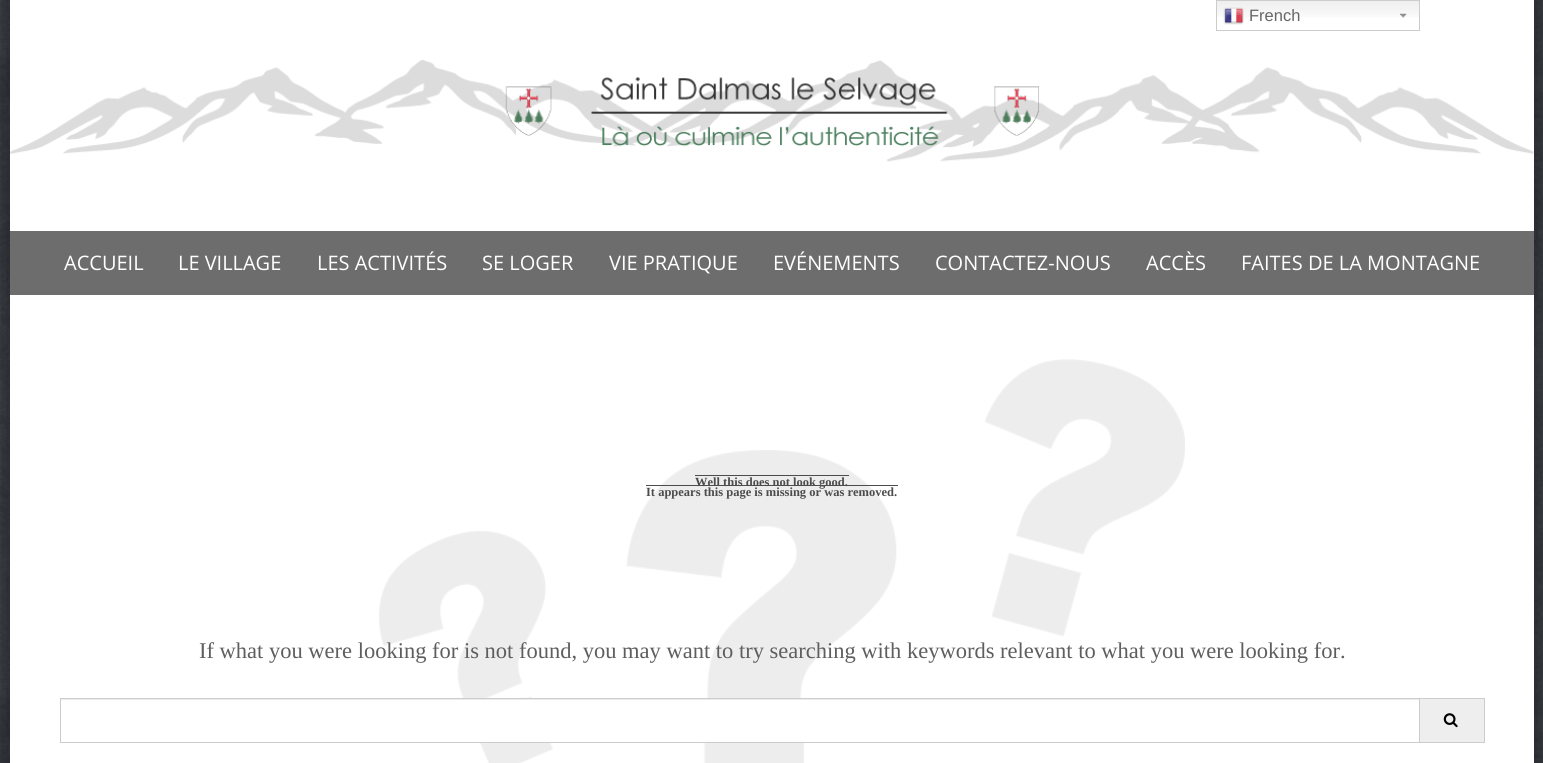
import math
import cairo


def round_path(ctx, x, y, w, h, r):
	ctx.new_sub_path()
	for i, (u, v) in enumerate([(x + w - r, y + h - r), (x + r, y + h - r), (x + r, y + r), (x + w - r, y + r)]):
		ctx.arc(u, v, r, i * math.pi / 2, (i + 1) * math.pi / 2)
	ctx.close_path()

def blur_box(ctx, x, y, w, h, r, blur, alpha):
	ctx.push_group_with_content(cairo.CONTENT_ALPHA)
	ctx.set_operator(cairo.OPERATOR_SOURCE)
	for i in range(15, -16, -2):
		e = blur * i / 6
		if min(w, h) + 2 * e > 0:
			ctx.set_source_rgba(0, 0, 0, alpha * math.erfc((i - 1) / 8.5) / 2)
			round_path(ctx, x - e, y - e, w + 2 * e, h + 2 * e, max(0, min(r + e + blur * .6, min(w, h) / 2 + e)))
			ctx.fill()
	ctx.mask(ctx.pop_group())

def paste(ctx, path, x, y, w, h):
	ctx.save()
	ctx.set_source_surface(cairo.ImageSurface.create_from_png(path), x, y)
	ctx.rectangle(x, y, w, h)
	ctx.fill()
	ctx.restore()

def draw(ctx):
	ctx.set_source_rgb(1, 1, 1)
	ctx.paint()
	paste(ctx, 'media/1.png', 0, 0, 1543, 763)
	ctx.set_source_rgb(0, 0, 0)
	blur_box(ctx, 4, -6, 1536, 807, 0, 12.5, 0.5)
	ctx.set_source_rgb(1, 1, 1)
	ctx.rectangle(10, 0, 1524, 231)
	ctx.fill()
	paste(ctx, 'media/2.png', 1217, 1, 202, 16)
	paste(ctx, 'media/3.png', 1400, 13, 7, 5)
	ctx.rectangle(1216.5, 0.5, 203, 30)
	ctx.set_source_rgb(0.8, 0.8, 0.8)
	ctx.set_line_width(1)
	ctx.stroke()
	paste(ctx, 'media/4.png', 1223, 7, 21, 18)
	ctx.select_font_face('Liberation Sans')
	ctx.set_font_size(16.5)
	ctx.set_source_rgb(0.4, 0.4, 0.4)
	ctx.move_to(1249, 21)
	ctx.show_text('French')
	paste(ctx, 'media/5.png', 10, 60, 1524, 102)
	ctx.set_source_rgb(0.427, 0.427, 0.427)
	ctx.rectangle(10, 231, 1524, 64)
	ctx.fill()
	ctx.select_font_face('Open Sans')
	ctx.set_font_size(20)
	ctx.set_source_rgb(1, 1, 1)
	for x, y, s in [
		(64, 270, 'ACCUEIL'),
		(178, 270, 'LE VILLAGE'),
		(317, 270, 'LES ACTIVITÉS'),
		(482, 270, 'SE LOGER'),
		(609, 270, 'VIE PRATIQUE'),
		(773, 270, 'EVÉNEMENTS'),
		(935, 270, 'CONTACTEZ-NOUS'),
		(1146, 270, 'ACCÈS'),
		(1241, 270, 'FAITES DE LA MONTAGNE'),
	]:
		ctx.move_to(x, y)
		ctx.show_text(s)
	ctx.rectangle(10, 295, 1524, 468)
	ctx.fill()
	paste(ctx, 'media/6.png', 379, 359, 806, 404)
	ctx.select_font_face('Liberation Serif', cairo.FONT_SLANT_NORMAL, cairo.FONT_WEIGHT_BOLD)
	ctx.set_font_size(12.5)
	ctx.set_source_rgb(0.298, 0.298, 0.298)
	ctx.move_to(695, 486)
	ctx.show_text('Well this does not look good.')
	ctx.rectangle(695, 475, 154, 1)
	ctx.fill()
	ctx.move_to(646, 496)
	ctx.show_text('It appears this page is missing or was removed.')
	ctx.rectangle(646, 485, 252, 1)
	ctx.fill()
	ctx.select_font_face('Liberation Serif')
	ctx.set_font_size(22.5)
	ctx.set_source_rgb(0.369, 0.369, 0.369)
	ctx.move_to(199, 658)
	ctx.show_text('If what you were looking for is not found, you may want to try searching with keywords relevant to what you were looking for.')
	ctx.set_source_rgb(0.933, 0.933, 0.933)
	ctx.rectangle(1420, 699, 64, 43)
	ctx.fill()
	ctx.rectangle(1418.5, 698.5, 66, 44)
	ctx.set_source_rgb(0.8, 0.8, 0.8)
	ctx.stroke()
	ctx.set_source_rgb(1, 1, 1)
	ctx.rectangle(464, 700, 955, 42)
	ctx.fill()
	ctx.set_source_rgb(0.925, 0.925, 0.925)
	ctx.rectangle(61, 699, 1358, 1)
	ctx.fill()
	ctx.rectangle(60.5, 698.5, 1359, 44)
	ctx.set_source_rgb(0.8, 0.8, 0.8)
	ctx.stroke()
	paste(ctx, 'media/7.png', 1443, 713, 15, 15)


surface = cairo.ImageSurface(cairo.FORMAT_RGB24, 1543, 763)
ctx = cairo.Context(surface)
options = cairo.FontOptions()
options.set_hint_metrics(cairo.HINT_METRICS_OFF)
options.set_hint_style(cairo.HINT_STYLE_NONE)
ctx.set_font_options(options)
ctx.set_miter_limit(4)
draw(ctx)
surface.write_to_png('image.png')
